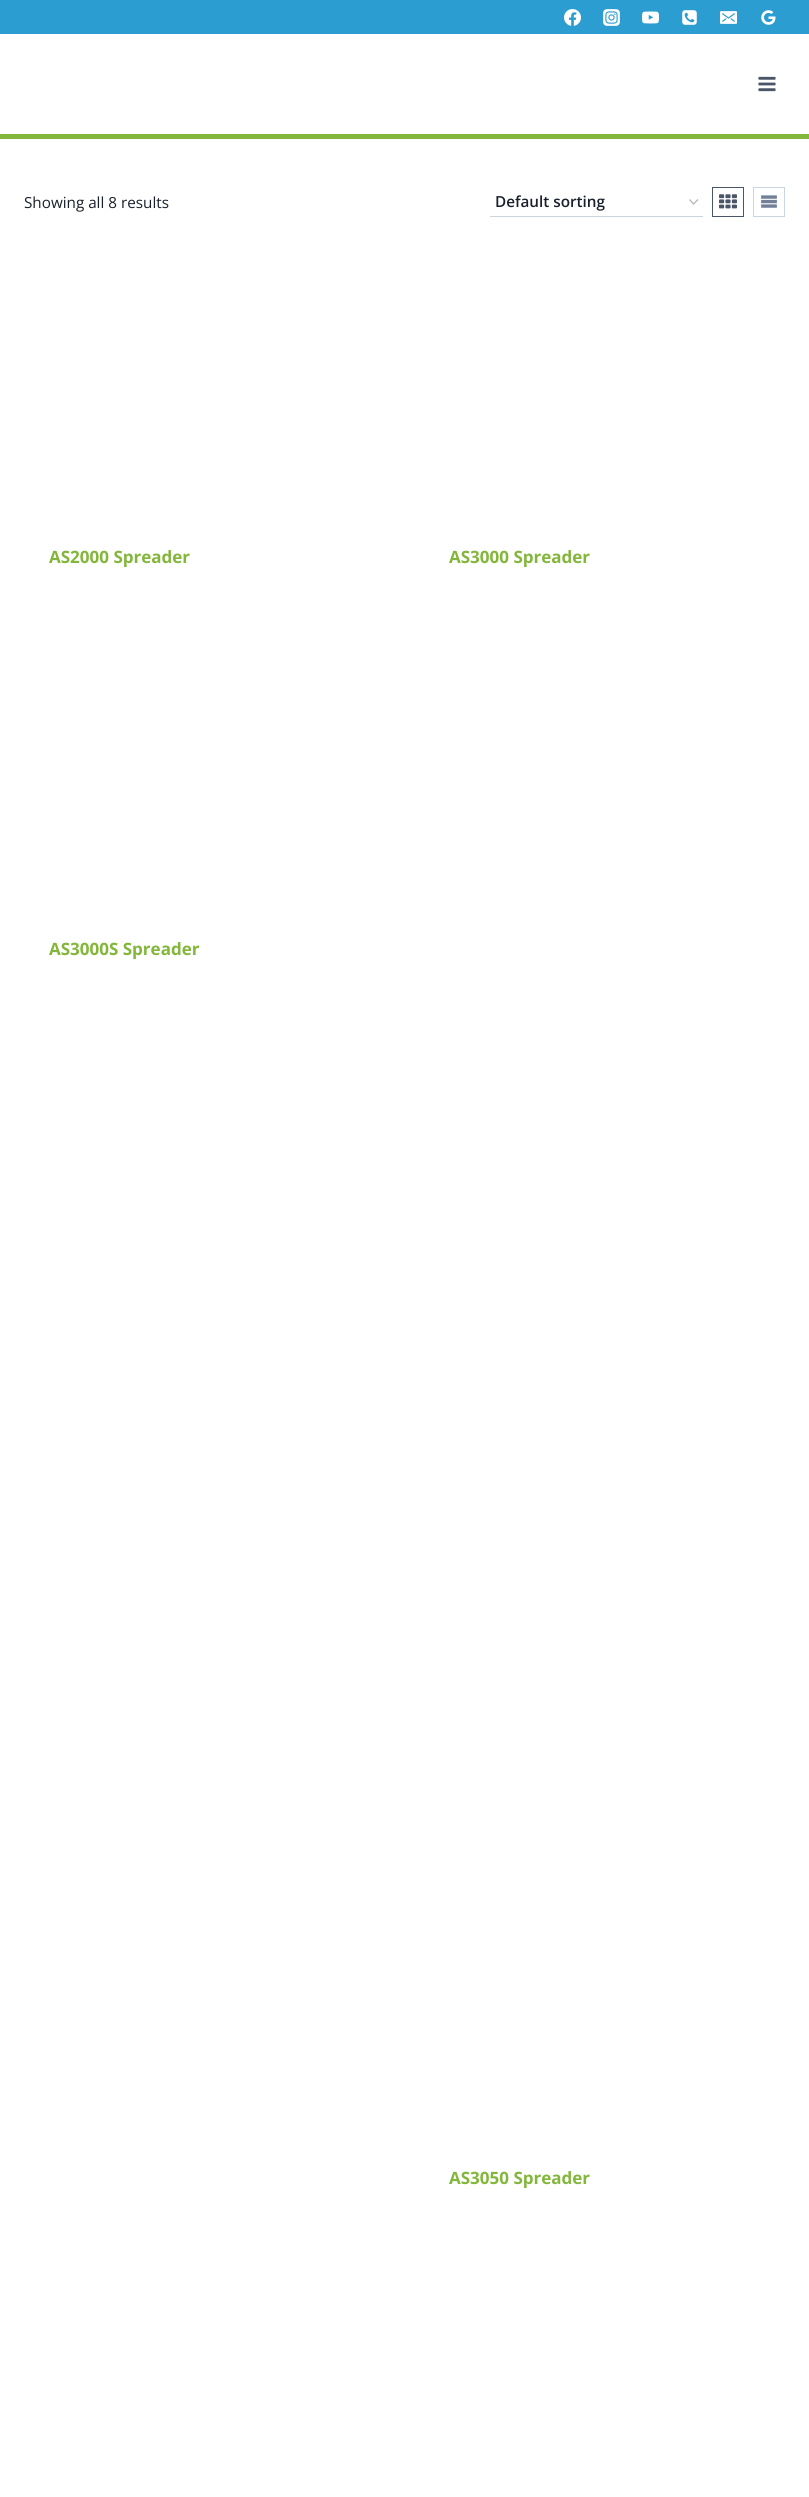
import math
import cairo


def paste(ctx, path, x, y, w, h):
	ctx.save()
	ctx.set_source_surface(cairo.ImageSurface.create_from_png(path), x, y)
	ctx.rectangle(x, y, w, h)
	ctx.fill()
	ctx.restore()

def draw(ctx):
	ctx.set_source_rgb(1, 1, 1)
	ctx.paint()
	ctx.set_source_rgb(0.173, 0.616, 0.82)
	ctx.rectangle(0, 0, 809, 34)
	ctx.fill()
	paste(ctx, 'media/1.png', 564, 9, 17, 17)
	paste(ctx, 'media/2.png', 603, 9, 17, 17)
	paste(ctx, 'media/3.png', 642, 11, 17, 13)
	paste(ctx, 'media/4.png', 682, 10, 15, 15)
	paste(ctx, 'media/5.png', 720, 11, 17, 13)
	paste(ctx, 'media/6.png', 761, 10, 15, 15)
	ctx.set_source_rgb(0.514, 0.718, 0.231)
	ctx.rectangle(0, 134, 809, 5)
	ctx.fill()
	paste(ctx, 'media/7.png', 758, 76, 18, 16)
	ctx.select_font_face('Open Sans')
	ctx.set_font_size(15.25)
	ctx.set_source_rgb(0.102, 0.125, 0.173)
	ctx.move_to(24, 208)
	ctx.show_text('Showing all 8 results')
	ctx.new_path()
	ctx.move_to(689.5, 199.5)
	ctx.line_to(693.5, 204)
	ctx.line_to(698, 199.5)
	ctx.set_source_rgb(0.733, 0.733, 0.733)
	ctx.set_line_width(1.4)
	ctx.stroke()
	ctx.set_source_rgb(0.796, 0.835, 0.878)
	ctx.rectangle(490, 216, 213, 1)
	ctx.fill()
	ctx.select_font_face('Open Sans SemiBold')
	ctx.set_source_rgb(0.102, 0.125, 0.173)
	ctx.move_to(495, 207)
	ctx.show_text('Default sorting')
	ctx.rectangle(712.5, 187.5, 31, 29)
	ctx.set_source_rgb(0.29, 0.333, 0.408)
	ctx.set_line_width(1)
	ctx.stroke()
	paste(ctx, 'media/8.png', 719, 194, 18, 15)
	ctx.rectangle(753.5, 187.5, 31, 29)
	ctx.set_source_rgb(0.796, 0.835, 0.878)
	ctx.stroke()
	paste(ctx, 'media/9.png', 761, 195, 16, 13)
	ctx.select_font_face('Open Sans', cairo.FONT_SLANT_NORMAL, cairo.FONT_WEIGHT_BOLD)
	ctx.set_font_size(17)
	ctx.set_source_rgb(0.514, 0.718, 0.231)
	for x, y, s in [
		(49, 563, 'AS2000 Spreader'),
		(449, 563, 'AS3000 Spreader'),
		(49, 955, 'AS3000S Spreader'),
		(449, 2184, 'AS3050 Spreader'),
	]:
		ctx.move_to(x, y)
		ctx.show_text(s)


surface = cairo.ImageSurface(cairo.FORMAT_RGB24, 809, 2497)
ctx = cairo.Context(surface)
options = cairo.FontOptions()
options.set_hint_metrics(cairo.HINT_METRICS_OFF)
options.set_hint_style(cairo.HINT_STYLE_NONE)
ctx.set_font_options(options)
ctx.set_miter_limit(4)
draw(ctx)
surface.write_to_png('image.png')
